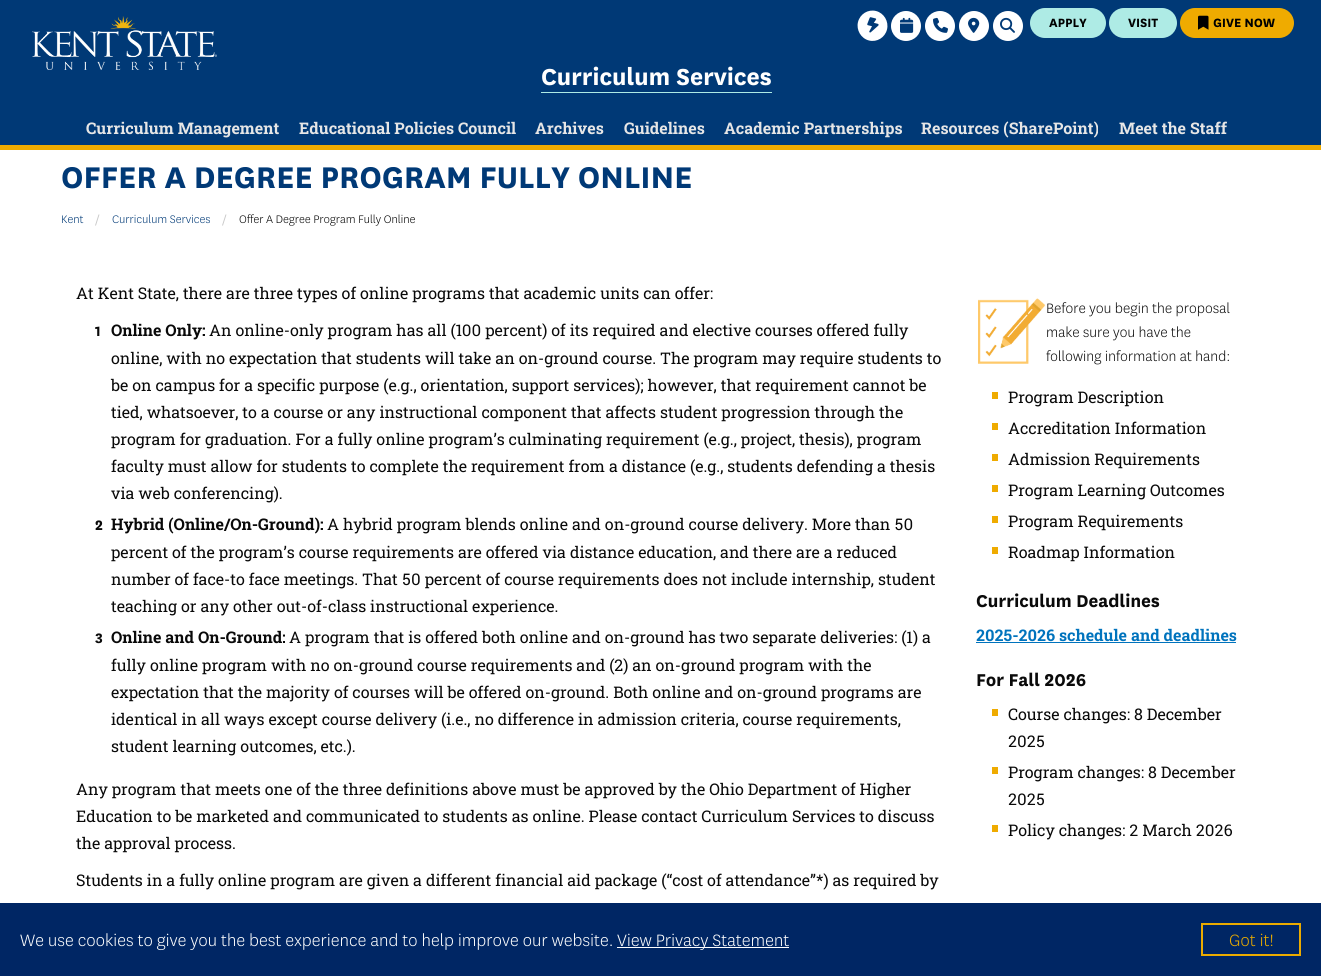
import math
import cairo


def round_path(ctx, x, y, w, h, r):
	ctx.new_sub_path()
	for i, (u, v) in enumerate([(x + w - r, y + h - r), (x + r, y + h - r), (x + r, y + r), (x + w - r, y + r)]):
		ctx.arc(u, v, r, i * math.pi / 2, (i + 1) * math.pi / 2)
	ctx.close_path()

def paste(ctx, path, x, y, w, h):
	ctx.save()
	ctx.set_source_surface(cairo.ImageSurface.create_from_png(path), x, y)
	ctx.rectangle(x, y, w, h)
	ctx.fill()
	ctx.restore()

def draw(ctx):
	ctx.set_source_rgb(1, 1, 1)
	ctx.paint()
	ctx.set_source_rgb(0, 0.224, 0.463)
	ctx.rectangle(0, 0, 1321, 145)
	ctx.fill()
	ctx.set_source_rgb(0.937, 0.671, 0)
	ctx.rectangle(0, 145, 1321, 5)
	ctx.fill()
	paste(ctx, 'media/1.png', 32, 16, 185, 54)
	ctx.set_source_rgb(1, 1, 1)
	ctx.new_path()
	ctx.move_to(876, 11)
	ctx.curve_to(884, 13, 889, 21.5, 887, 29.5)
	ctx.curve_to(885, 37.5, 877, 42.5, 869, 40.5)
	ctx.curve_to(861, 38.5, 856, 30, 858, 22)
	ctx.curve_to(860, 14, 868, 9, 876, 11)
	ctx.close_path()
	ctx.fill()
	paste(ctx, 'media/2.png', 867, 17, 12, 16)
	ctx.arc(906, 26, 15, 0, 2 * math.pi)
	ctx.fill()
	paste(ctx, 'media/3.png', 900, 17, 14, 16)
	ctx.arc(940, 26, 15, 0, 2 * math.pi)
	ctx.fill()
	paste(ctx, 'media/4.png', 933, 17, 15, 16)
	ctx.arc(974, 26, 15, 0, 2 * math.pi)
	ctx.fill()
	paste(ctx, 'media/5.png', 968, 17, 12, 16)
	ctx.arc(1008, 26, 15, 0, 2 * math.pi)
	ctx.fill()
	paste(ctx, 'media/6.png', 1000, 17, 15, 16)
	ctx.set_source_rgb(0.682, 0.918, 0.898)
	round_path(ctx, 1030, 8, 76, 30, 15)
	ctx.fill()
	paste(ctx, 'media/7.png', 1049, 18, 38, 9)
	round_path(ctx, 1109, 8, 68, 30, 15)
	ctx.fill()
	paste(ctx, 'media/8.png', 1128, 18, 30, 10)
	ctx.set_source_rgb(0.937, 0.671, 0)
	round_path(ctx, 1180, 8, 114, 30, 15)
	ctx.fill()
	paste(ctx, 'media/9.png', 1198, 15, 11, 15)
	paste(ctx, 'media/10.png', 1213, 18, 62, 10)
	paste(ctx, 'media/11.png', 542, 66, 229, 20)
	ctx.set_source_rgb(0.682, 0.918, 0.898)
	ctx.rectangle(541, 92, 231, 1)
	ctx.fill()
	ctx.select_font_face('Roboto Slab', cairo.FONT_SLANT_NORMAL, cairo.FONT_WEIGHT_BOLD)
	ctx.set_font_size(16)
	ctx.set_source_rgb(0.902, 0.902, 0.902)
	for x, y, s in [
		(86, 134, 'Curriculum Management'),
		(299, 134, 'Educational Policies Council'),
		(535, 134, 'Archives'),
		(624, 134, 'Guidelines'),
		(724, 134, 'Academic Partnerships'),
		(921, 134, 'Resources (SharePoint)'),
		(1119, 134, 'Meet the Staff'),
	]:
		ctx.move_to(x, y)
		ctx.show_text(s)
	paste(ctx, 'media/12.png', 62, 167, 629, 22)
	paste(ctx, 'media/13.png', 62, 215, 22, 9)
	ctx.set_source_rgb(0.792, 0.792, 0.792)
	ctx.new_path()
	ctx.move_to(98.5, 214.5)
	ctx.line_to(99.5, 214.5)
	ctx.line_to(96, 225.5)
	ctx.line_to(95, 225.5)
	ctx.close_path()
	ctx.fill()
	paste(ctx, 'media/14.png', 112, 214, 98, 10)
	ctx.new_path()
	ctx.move_to(225.5, 214.5)
	ctx.line_to(226.5, 214.5)
	ctx.line_to(223, 225.5)
	ctx.line_to(222, 225.5)
	ctx.close_path()
	ctx.fill()
	paste(ctx, 'media/15.png', 239, 214, 176, 12)
	ctx.select_font_face('Roboto Slab')
	ctx.set_source_rgb(0.039, 0.039, 0.039)
	ctx.move_to(76, 299)
	ctx.show_text('At Kent State, there are three types of online programs that academic units can offer:')
	paste(ctx, 'media/16.png', 95, 326, 5, 10)
	ctx.select_font_face('Roboto Slab', cairo.FONT_SLANT_NORMAL, cairo.FONT_WEIGHT_BOLD)
	ctx.move_to(111, 336)
	ctx.show_text('Online Only:')
	ctx.select_font_face('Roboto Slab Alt')
	ctx.move_to(209, 336)
	ctx.show_text('An online-only program has all (100 percent) of its required and elective courses offered fully')
	ctx.select_font_face('Roboto Slab')
	for x, y, s in [
		(111, 364, 'online, with no expectation that students will take an on-ground course. The program may require students to'),
		(111, 391, 'be on campus for a specific purpose (e.g., orientation, support services); however, that requirement cannot be'),
		(111, 418, 'tied, whatsoever, to a course or any instructional component that affects student progression through the'),
		(111, 445, 'program for graduation. For a fully online program’s culminating requirement (e.g., project, thesis), program'),
		(111, 472, 'faculty must allow for students to complete the requirement from a distance (e.g., students defending a thesis'),
		(111, 499, 'via web conferencing).'),
	]:
		ctx.move_to(x, y)
		ctx.show_text(s)
	paste(ctx, 'media/17.png', 95, 520, 8, 10)
	ctx.select_font_face('Roboto Slab', cairo.FONT_SLANT_NORMAL, cairo.FONT_WEIGHT_BOLD)
	ctx.move_to(111, 530)
	ctx.show_text('Hybrid (Online/On-Ground):')
	ctx.select_font_face('Roboto Slab Alt')
	ctx.move_to(327, 530)
	ctx.show_text('A hybrid program blends online and on-ground course delivery. More than 50')
	ctx.select_font_face('Roboto Slab')
	ctx.move_to(111, 558)
	ctx.show_text('percent of the program’s course requirements are offered via distance education, and there are a reduced')
	ctx.select_font_face('Roboto Slab Alt')
	ctx.move_to(111, 585)
	ctx.show_text('number of face-to face meetings. That 50 percent of course requirements does not include internship, student')
	ctx.select_font_face('Roboto Slab')
	ctx.move_to(111, 612)
	ctx.show_text('teaching or any other out-of-class instructional experience.')
	paste(ctx, 'media/18.png', 95, 633, 8, 11)
	ctx.select_font_face('Roboto Slab', cairo.FONT_SLANT_NORMAL, cairo.FONT_WEIGHT_BOLD)
	ctx.move_to(111, 643)
	ctx.show_text('Online and On-Ground:')
	ctx.select_font_face('Roboto Slab')
	for x, y, s in [
		(289, 643, 'A program that is offered both online and on-ground has two separate deliveries: (1) a'),
		(111, 671, 'fully online program with no on-ground course requirements and (2) an on-ground program with the'),
		(111, 698, 'expectation that the majority of courses will be offered on-ground. Both online and on-ground programs are'),
		(111, 725, 'identical in all ways except course delivery (i.e., no difference in admission criteria, course requirements,'),
		(111, 752, 'student learning outcomes, etc.).'),
		(76, 795, 'Any program that meets one of the three definitions above must be approved by the Ohio Department of Higher'),
		(76, 822, 'Education to be marketed and communicated to students as online. Please contact Curriculum Services to discuss'),
		(76, 849, 'the approval process.'),
		(76, 886, 'Students in a fully online program are given a different financial aid package (“cost of attendance”*) as required by'),
	]:
		ctx.move_to(x, y)
		ctx.show_text(s)
	paste(ctx, 'media/19.png', 978, 298, 68, 66)
	paste(ctx, 'media/20.png', 1047, 302, 183, 15)
	paste(ctx, 'media/21.png', 1047, 326, 144, 15)
	paste(ctx, 'media/22.png', 1046, 350, 183, 15)
	ctx.set_source_rgb(0.937, 0.671, 0)
	ctx.rectangle(992, 392, 6, 7)
	ctx.fill()
	ctx.set_source_rgb(0.039, 0.039, 0.039)
	ctx.move_to(1008, 403)
	ctx.show_text('Program Description')
	ctx.set_source_rgb(0.937, 0.671, 0)
	ctx.rectangle(992, 423, 6, 7)
	ctx.fill()
	ctx.set_source_rgb(0.039, 0.039, 0.039)
	ctx.move_to(1008, 434)
	ctx.show_text('Accreditation Information')
	ctx.set_source_rgb(0.937, 0.671, 0)
	ctx.rectangle(992, 454, 6, 7)
	ctx.fill()
	ctx.set_source_rgb(0.039, 0.039, 0.039)
	ctx.move_to(1008, 465)
	ctx.show_text('Admission Requirements')
	ctx.set_source_rgb(0.937, 0.671, 0)
	ctx.rectangle(992, 485, 6, 7)
	ctx.fill()
	ctx.set_source_rgb(0.039, 0.039, 0.039)
	ctx.move_to(1008, 496)
	ctx.show_text('Program Learning Outcomes')
	ctx.set_source_rgb(0.937, 0.671, 0)
	ctx.rectangle(992, 516, 6, 7)
	ctx.fill()
	ctx.set_source_rgb(0.039, 0.039, 0.039)
	ctx.move_to(1008, 527)
	ctx.show_text('Program Requirements')
	ctx.set_source_rgb(0.937, 0.671, 0)
	ctx.rectangle(992, 547, 6, 7)
	ctx.fill()
	ctx.set_source_rgb(0.039, 0.039, 0.039)
	ctx.move_to(1008, 558)
	ctx.show_text('Roadmap Information')
	paste(ctx, 'media/23.png', 976, 593, 184, 15)
	ctx.select_font_face('Roboto Slab Alt', cairo.FONT_SLANT_NORMAL, cairo.FONT_WEIGHT_BOLD)
	ctx.set_source_rgb(0, 0.451, 0.741)
	ctx.move_to(976, 641)
	ctx.show_text('2025-2026 schedule and deadlines')
	ctx.rectangle(976, 642, 260, 1)
	ctx.fill()
	paste(ctx, 'media/24.png', 977, 672, 109, 15)
	ctx.set_source_rgb(0.937, 0.671, 0)
	ctx.rectangle(992, 709, 6, 7)
	ctx.fill()
	ctx.select_font_face('Roboto Slab')
	ctx.set_source_rgb(0.039, 0.039, 0.039)
	ctx.move_to(1008, 720)
	ctx.show_text('Course changes: 8 December')
	ctx.select_font_face('Roboto Slab Alt')
	ctx.move_to(1008, 747)
	ctx.show_text('2025')
	ctx.set_source_rgb(0.937, 0.671, 0)
	ctx.rectangle(992, 767, 6, 7)
	ctx.fill()
	ctx.select_font_face('Roboto Slab')
	ctx.set_source_rgb(0.039, 0.039, 0.039)
	ctx.move_to(1008, 778)
	ctx.show_text('Program changes: 8 December')
	ctx.select_font_face('Roboto Slab Alt')
	ctx.move_to(1008, 805)
	ctx.show_text('2025')
	ctx.set_source_rgb(0.937, 0.671, 0)
	ctx.rectangle(992, 825, 6, 7)
	ctx.fill()
	ctx.set_source_rgb(0.039, 0.039, 0.039)
	ctx.move_to(1008, 836)
	ctx.show_text('Policy changes: 2 March 2026')
	ctx.set_source_rgb(0, 0.149, 0.392)
	ctx.rectangle(0, 903, 1321, 73)
	ctx.fill()
	paste(ctx, 'media/25.png', 20, 933, 592, 18)
	ctx.set_source_rgb(1, 1, 1)
	ctx.rectangle(617, 947, 172, 1)
	ctx.fill()
	paste(ctx, 'media/26.png', 617, 933, 172, 17)
	ctx.rectangle(1202, 924, 98, 31)
	ctx.set_source_rgb(0.918, 0.671, 0)
	ctx.stroke()
	paste(ctx, 'media/27.png', 1229, 933, 44, 14)


surface = cairo.ImageSurface(cairo.FORMAT_RGB24, 1321, 976)
ctx = cairo.Context(surface)
options = cairo.FontOptions()
options.set_hint_metrics(cairo.HINT_METRICS_OFF)
options.set_hint_style(cairo.HINT_STYLE_NONE)
ctx.set_font_options(options)
ctx.set_miter_limit(4)
draw(ctx)
surface.write_to_png('image.png')
